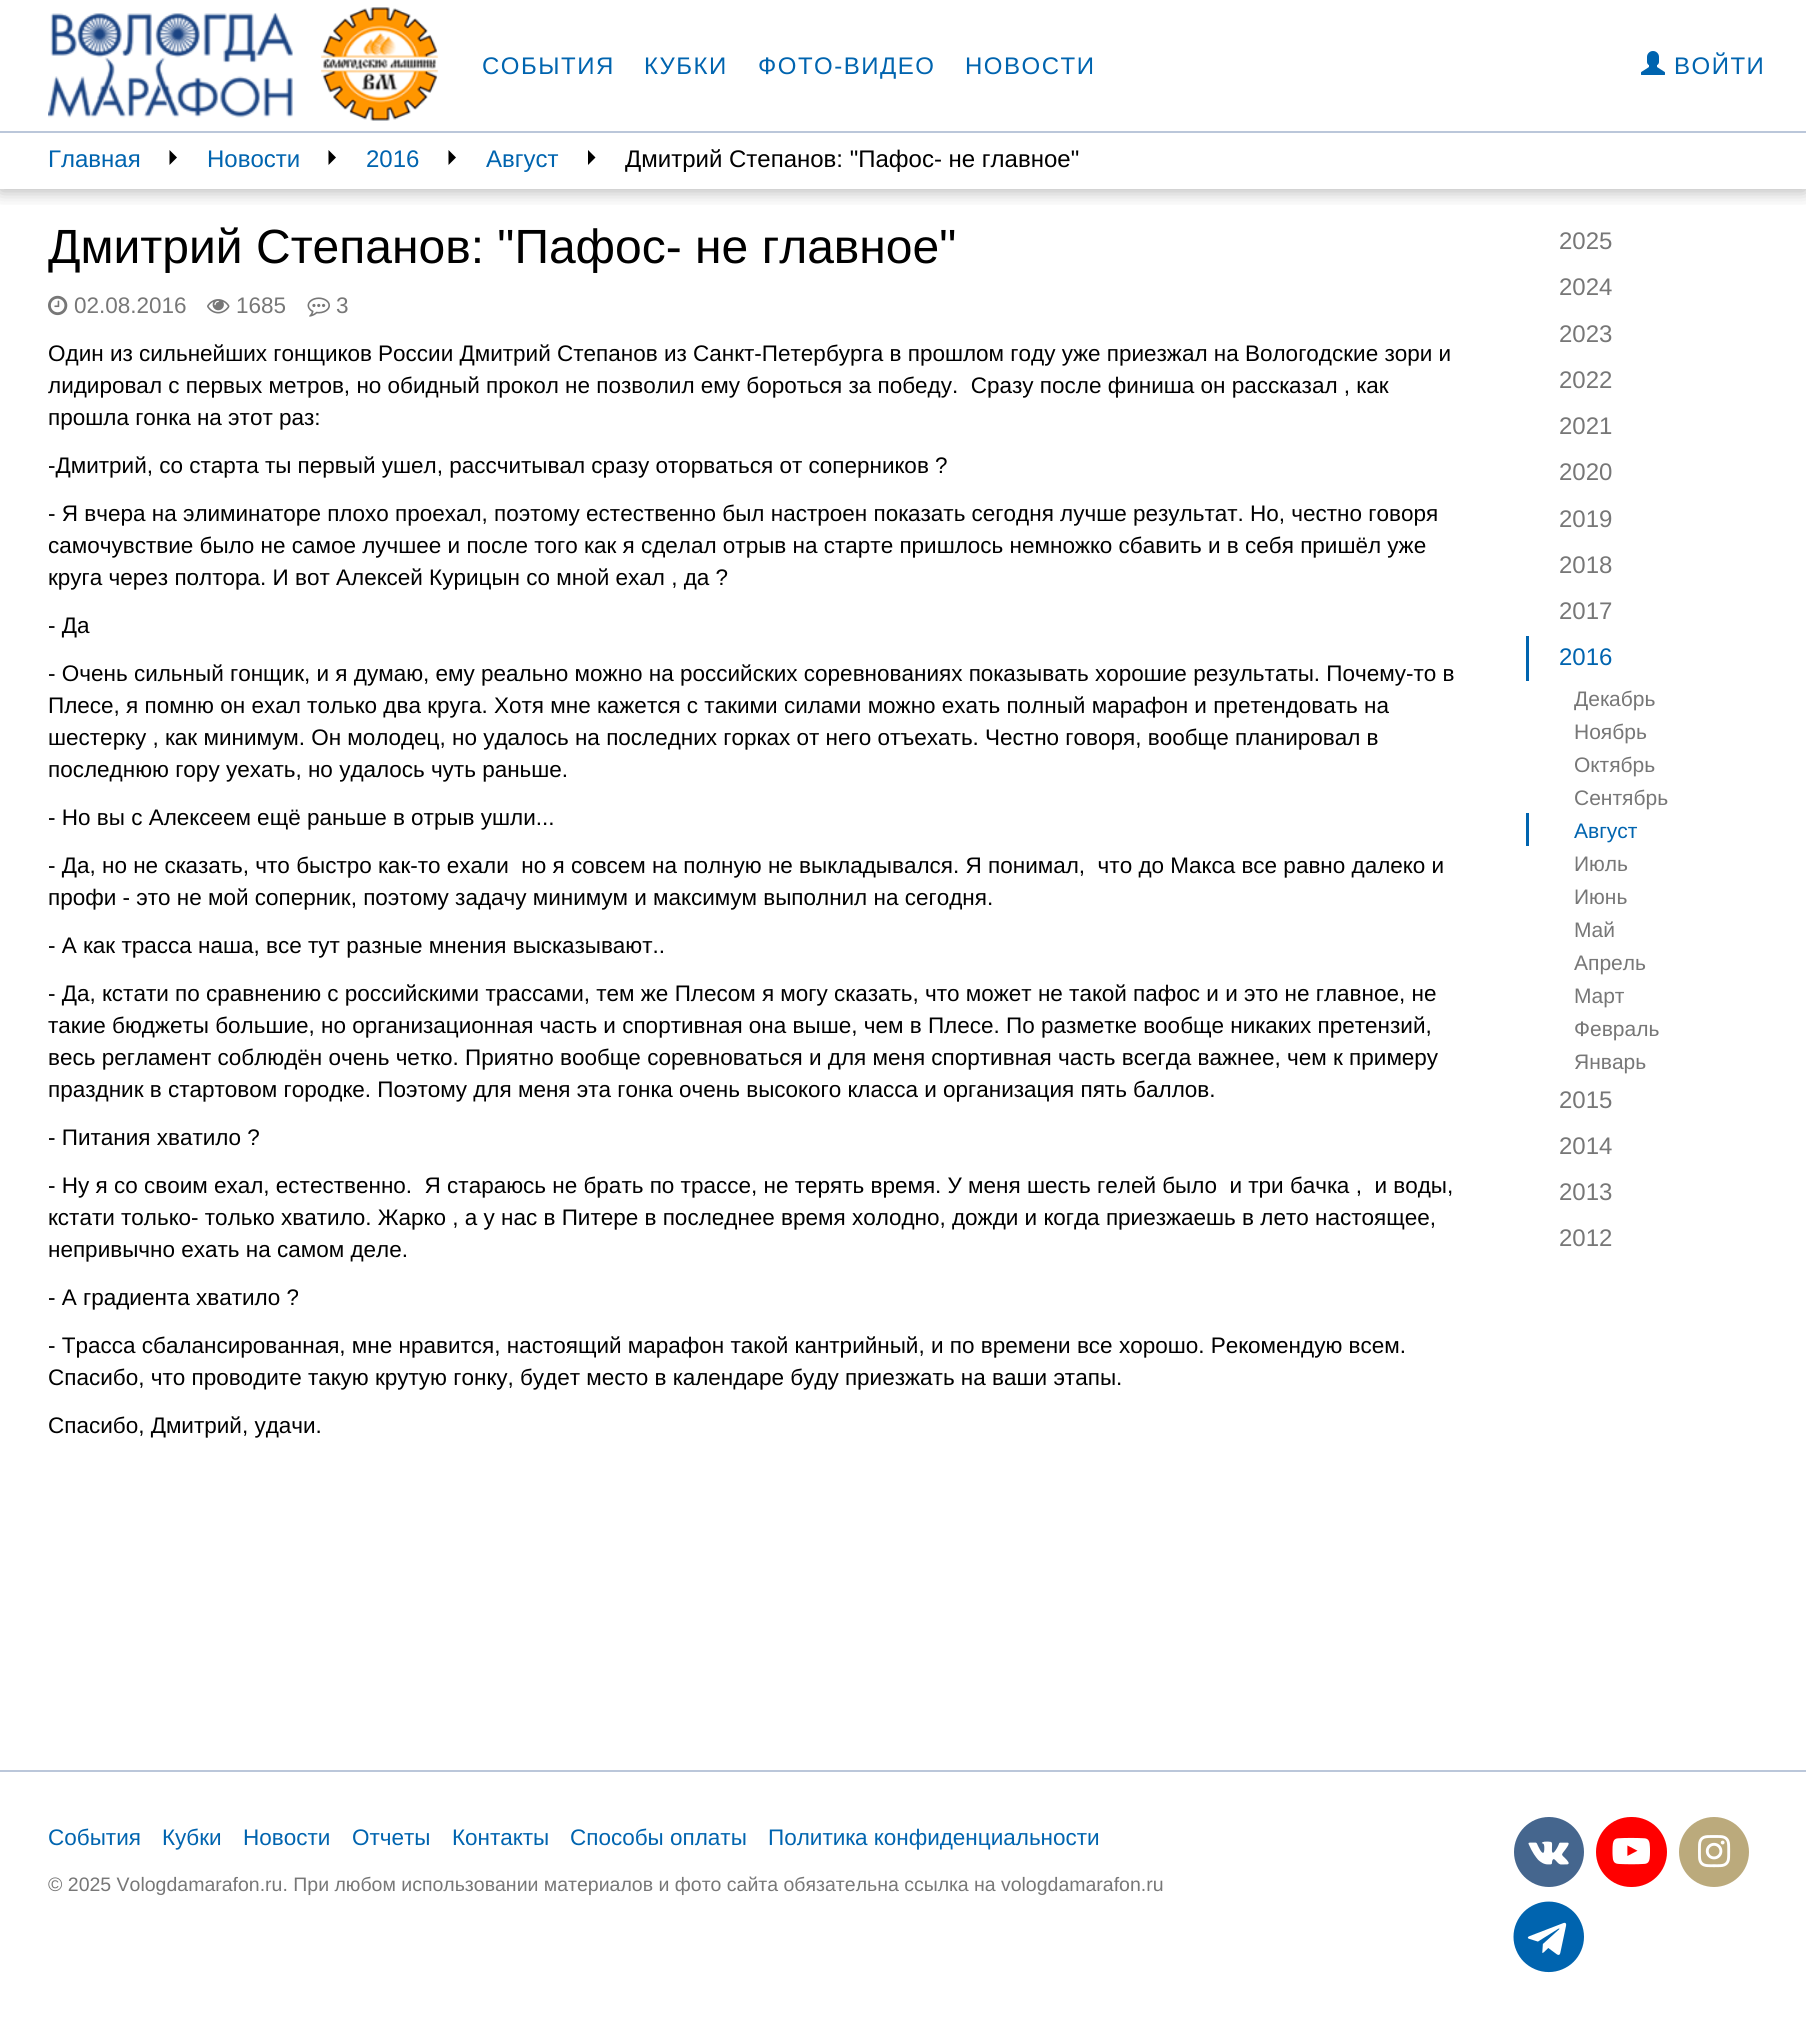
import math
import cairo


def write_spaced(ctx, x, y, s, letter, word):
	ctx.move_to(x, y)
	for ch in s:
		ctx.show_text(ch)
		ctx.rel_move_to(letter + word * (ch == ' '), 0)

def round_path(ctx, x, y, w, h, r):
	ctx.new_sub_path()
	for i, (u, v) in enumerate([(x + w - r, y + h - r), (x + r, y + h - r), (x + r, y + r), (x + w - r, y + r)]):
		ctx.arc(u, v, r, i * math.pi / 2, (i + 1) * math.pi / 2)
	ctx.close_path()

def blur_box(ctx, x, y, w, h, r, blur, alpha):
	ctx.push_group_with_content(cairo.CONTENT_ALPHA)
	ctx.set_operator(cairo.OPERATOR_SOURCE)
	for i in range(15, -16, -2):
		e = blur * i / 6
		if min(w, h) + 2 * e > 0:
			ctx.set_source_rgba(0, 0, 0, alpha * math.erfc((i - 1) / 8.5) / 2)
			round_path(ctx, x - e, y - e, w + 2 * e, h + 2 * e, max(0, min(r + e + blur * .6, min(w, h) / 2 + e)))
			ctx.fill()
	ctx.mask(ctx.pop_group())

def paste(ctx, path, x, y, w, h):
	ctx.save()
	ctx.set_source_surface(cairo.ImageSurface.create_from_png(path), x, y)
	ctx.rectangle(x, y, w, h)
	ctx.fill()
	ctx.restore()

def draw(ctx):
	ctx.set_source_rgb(1, 1, 1)
	ctx.paint()
	ctx.save()
	ctx.rectangle(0, 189, 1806, 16)
	ctx.clip()
	ctx.set_source_rgb(0, 0, 0)
	blur_box(ctx, 0, 131, 1806, 60, 0, 9, 0.3)
	ctx.restore()
	ctx.set_source_rgb(1, 1, 1)
	ctx.rectangle(0, 115, 1806, 14)
	ctx.fill()
	ctx.set_source_rgb(0.733, 0.78, 0.855)
	ctx.rectangle(0, 131, 1806, 2)
	ctx.fill()
	paste(ctx, 'media/1.png', 48, 12, 245, 106)
	paste(ctx, 'media/2.png', 321, 7, 118, 114)
	ctx.select_font_face('Liberation Sans')
	ctx.set_font_size(24)
	ctx.set_source_rgb(0, 0.392, 0.686)
	for x, y, s in [
		(482, 74, 'СОБЫТИЯ'),
		(644, 74, 'КУБКИ'),
		(758, 74, 'ФОТО-ВИДЕО'),
		(965, 74, 'НОВОСТИ'),
	]:
		write_spaced(ctx, x, y, s, 1.5, 0)
	paste(ctx, 'media/3.png', 1641, 51, 24, 24)
	write_spaced(ctx, 1674, 74, 'ВОЙТИ', 1.5, 0)
	ctx.move_to(48, 167)
	ctx.show_text('Главная')
	ctx.set_source_rgb(0, 0, 0)
	ctx.new_path()
	ctx.move_to(169.5, 165)
	ctx.line_to(169.5, 150)
	ctx.line_to(177, 157.5)
	ctx.close_path()
	ctx.fill()
	ctx.set_source_rgb(0, 0.392, 0.686)
	ctx.move_to(207, 167)
	ctx.show_text('Новости')
	ctx.set_source_rgb(0, 0, 0)
	ctx.new_path()
	ctx.move_to(328.5, 165)
	ctx.line_to(328.5, 150)
	ctx.line_to(336, 157.5)
	ctx.close_path()
	ctx.fill()
	ctx.set_source_rgb(0, 0.392, 0.686)
	ctx.move_to(366, 167)
	ctx.show_text('2016')
	ctx.set_source_rgb(0, 0, 0)
	ctx.new_path()
	ctx.move_to(448.5, 165)
	ctx.line_to(448.5, 150)
	ctx.line_to(456, 157.5)
	ctx.close_path()
	ctx.fill()
	ctx.set_source_rgb(0, 0.392, 0.686)
	ctx.move_to(486, 167)
	ctx.show_text('Август')
	ctx.set_source_rgb(0, 0, 0)
	ctx.new_path()
	ctx.move_to(588, 165)
	ctx.line_to(588, 150)
	ctx.line_to(595.5, 157.5)
	ctx.close_path()
	ctx.fill()
	ctx.move_to(625, 167)
	ctx.show_text('Дмитрий Степанов: "Пафос- не главное"')
	ctx.set_source_rgb(0.467, 0.467, 0.467)
	for x, y, s in [
		(1559, 249, '2025'),
		(1559, 295, '2024'),
		(1559, 342, '2023'),
		(1559, 388, '2022'),
		(1559, 434, '2021'),
		(1559, 480, '2020'),
		(1559, 527, '2019'),
		(1559, 573, '2018'),
		(1559, 619, '2017'),
	]:
		ctx.move_to(x, y)
		ctx.show_text(s)
	ctx.set_source_rgb(0, 0.392, 0.686)
	ctx.rectangle(1526, 636, 3, 45)
	ctx.fill()
	ctx.move_to(1559, 665)
	ctx.show_text('2016')
	ctx.set_font_size(21)
	ctx.set_source_rgb(0.467, 0.467, 0.467)
	for x, y, s in [
		(1574, 706, 'Декабрь'),
		(1574, 739, 'Ноябрь'),
		(1574, 772, 'Октябрь'),
		(1574, 805, 'Сентябрь'),
	]:
		ctx.move_to(x, y)
		ctx.show_text(s)
	ctx.set_source_rgb(0, 0.392, 0.686)
	ctx.rectangle(1526, 813, 3, 33)
	ctx.fill()
	ctx.move_to(1574, 838)
	ctx.show_text('Август')
	ctx.set_source_rgb(0.467, 0.467, 0.467)
	for x, y, s in [
		(1574, 871, 'Июль'),
		(1574, 904, 'Июнь'),
		(1574, 937, 'Май'),
		(1574, 970, 'Апрель'),
		(1574, 1003, 'Март'),
		(1574, 1036, 'Февраль'),
		(1574, 1069, 'Январь'),
	]:
		ctx.move_to(x, y)
		ctx.show_text(s)
	ctx.set_font_size(24)
	for x, y, s in [
		(1559, 1108, '2015'),
		(1559, 1154, '2014'),
		(1559, 1200, '2013'),
		(1559, 1246, '2012'),
	]:
		ctx.move_to(x, y)
		ctx.show_text(s)
	ctx.set_font_size(48)
	ctx.set_source_rgb(0, 0, 0)
	ctx.move_to(48, 263)
	ctx.show_text('Дмитрий Степанов: "Пафос- не главное"')
	paste(ctx, 'media/4.png', 48, 295, 20, 21)
	ctx.set_font_size(22.5)
	ctx.set_source_rgb(0.467, 0.467, 0.467)
	ctx.move_to(74, 313)
	ctx.show_text('02.08.2016')
	paste(ctx, 'media/5.png', 207, 299, 23, 15)
	ctx.move_to(236, 313)
	ctx.show_text('1685')
	paste(ctx, 'media/6.png', 307, 297, 23, 20)
	ctx.move_to(336, 313)
	ctx.show_text('3')
	ctx.set_source_rgb(0, 0, 0)
	for x, y, s in [
		(48, 361, 'Один из сильнейших гонщиков России Дмитрий Степанов из Санкт-Петербурга в прошлом году уже приезжал на Вологодские зори и'),
		(48, 393, 'лидировал с первых метров, но обидный прокол не позволил ему бороться за победу.  Сразу после финиша он рассказал , как'),
		(48, 425, 'прошла гонка на этот раз:'),
		(48, 473, '-Дмитрий, со старта ты первый ушел, рассчитывал сразу оторваться от соперников ?'),
		(48, 521, '- Я вчера на элиминаторе плохо проехал, поэтому естественно был настроен показать сегодня лучше результат. Но, честно говоря'),
		(48, 553, 'самочувствие было не самое лучшее и после того как я сделал отрыв на старте пришлось немножко сбавить и в себя пришёл уже'),
		(48, 585, 'круга через полтора. И вот Алексей Курицын со мной ехал , да ?'),
		(48, 633, '- Да'),
		(48, 681, '- Очень сильный гонщик, и я думаю, ему реально можно на российских соревнованиях показывать хорошие результаты. Почему-то в'),
		(48, 713, 'Плесе, я помню он ехал только два круга. Хотя мне кажется с такими силами можно ехать полный марафон и претендовать на'),
		(48, 745, 'шестерку , как минимум. Он молодец, но удалось на последних горках от него отъехать. Честно говоря, вообще планировал в'),
		(48, 777, 'последнюю гору уехать, но удалось чуть раньше.'),
		(48, 825, '- Но вы с Алексеем ещё раньше в отрыв ушли...'),
		(48, 873, '- Да, но не сказать, что быстро как-то ехали  но я совсем на полную не выкладывался. Я понимал,  что до Макса все равно далеко и'),
		(48, 905, 'профи - это не мой соперник, поэтому задачу минимум и максимум выполнил на сегодня.'),
		(48, 953, '- А как трасса наша, все тут разные мнения высказывают..'),
		(48, 1001, '- Да, кстати по сравнению с российскими трассами, тем же Плесом я могу сказать, что может не такой пафос и и это не главное, не'),
		(48, 1033, 'такие бюджеты большие, но организационная часть и спортивная она выше, чем в Плесе. По разметке вообще никаких претензий,'),
		(48, 1065, 'весь регламент соблюдён очень четко. Приятно вообще соревноваться и для меня спортивная часть всегда важнее, чем к примеру'),
		(48, 1097, 'праздник в стартовом городке. Поэтому для меня эта гонка очень высокого класса и организация пять баллов.'),
		(48, 1145, '- Питания хватило ?'),
		(48, 1193, '- Ну я со своим ехал, естественно.  Я стараюсь не брать по трассе, не терять время. У меня шесть гелей было  и три бачка ,  и воды,'),
		(48, 1225, 'кстати только- только хватило. Жарко , а у нас в Питере в последнее время холодно, дожди и когда приезжаешь в лето настоящее,'),
		(48, 1257, 'непривычно ехать на самом деле.'),
		(48, 1305, '- А градиента хватило ?'),
		(48, 1353, '- Трасса сбалансированная, мне нравится, настоящий марафон такой кантрийный, и по времени все хорошо. Рекомендую всем.'),
		(48, 1385, 'Спасибо, что проводите такую крутую гонку, будет место в календаре буду приезжать на ваши этапы.'),
		(48, 1433, 'Спасибо, Дмитрий, удачи.'),
	]:
		ctx.move_to(x, y)
		ctx.show_text(s)
	ctx.set_source_rgb(0.733, 0.78, 0.855)
	ctx.rectangle(0, 1770, 1806, 2)
	ctx.fill()
	ctx.set_source_rgb(0, 0.392, 0.686)
	for x, y, s in [
		(48, 1845, 'События'),
		(162, 1845, 'Кубки'),
		(243, 1845, 'Новости'),
		(352, 1845, 'Отчеты'),
		(452, 1845, 'Контакты'),
		(570, 1845, 'Способы оплаты'),
		(768, 1845, 'Политика конфиденциальности'),
	]:
		ctx.move_to(x, y)
		ctx.show_text(s)
	ctx.set_font_size(19.5)
	ctx.set_source_rgb(0.467, 0.467, 0.467)
	ctx.move_to(48, 1891)
	ctx.show_text('© 2025 Vologdamarafon.ru. При любом использовании материалов и фото сайта обязательна ссылка на vologdamarafon.ru')
	ctx.set_source_rgb(0.271, 0.4, 0.557)
	ctx.new_path()
	ctx.arc(1549, 1852, 35, 0, 2 * math.pi)
	ctx.fill()
	paste(ctx, 'media/7.png', 1528, 1841, 41, 24)
	ctx.set_source_rgb(1, 0, 0)
	round_path(ctx, 1596, 1817, 71, 70, 35)
	ctx.fill()
	paste(ctx, 'media/8.png', 1612, 1837, 38, 28)
	ctx.set_source_rgb(0.733, 0.667, 0.486)
	ctx.arc(1714, 1852, 35, 0, 2 * math.pi)
	ctx.fill()
	paste(ctx, 'media/9.png', 1698, 1835, 33, 33)
	paste(ctx, 'media/10.png', 1513, 1901, 71, 72)


surface = cairo.ImageSurface(cairo.FORMAT_RGB24, 1806, 2032)
ctx = cairo.Context(surface)
options = cairo.FontOptions()
options.set_hint_metrics(cairo.HINT_METRICS_OFF)
options.set_hint_style(cairo.HINT_STYLE_NONE)
ctx.set_font_options(options)
ctx.set_miter_limit(4)
draw(ctx)
surface.write_to_png('image.png')
